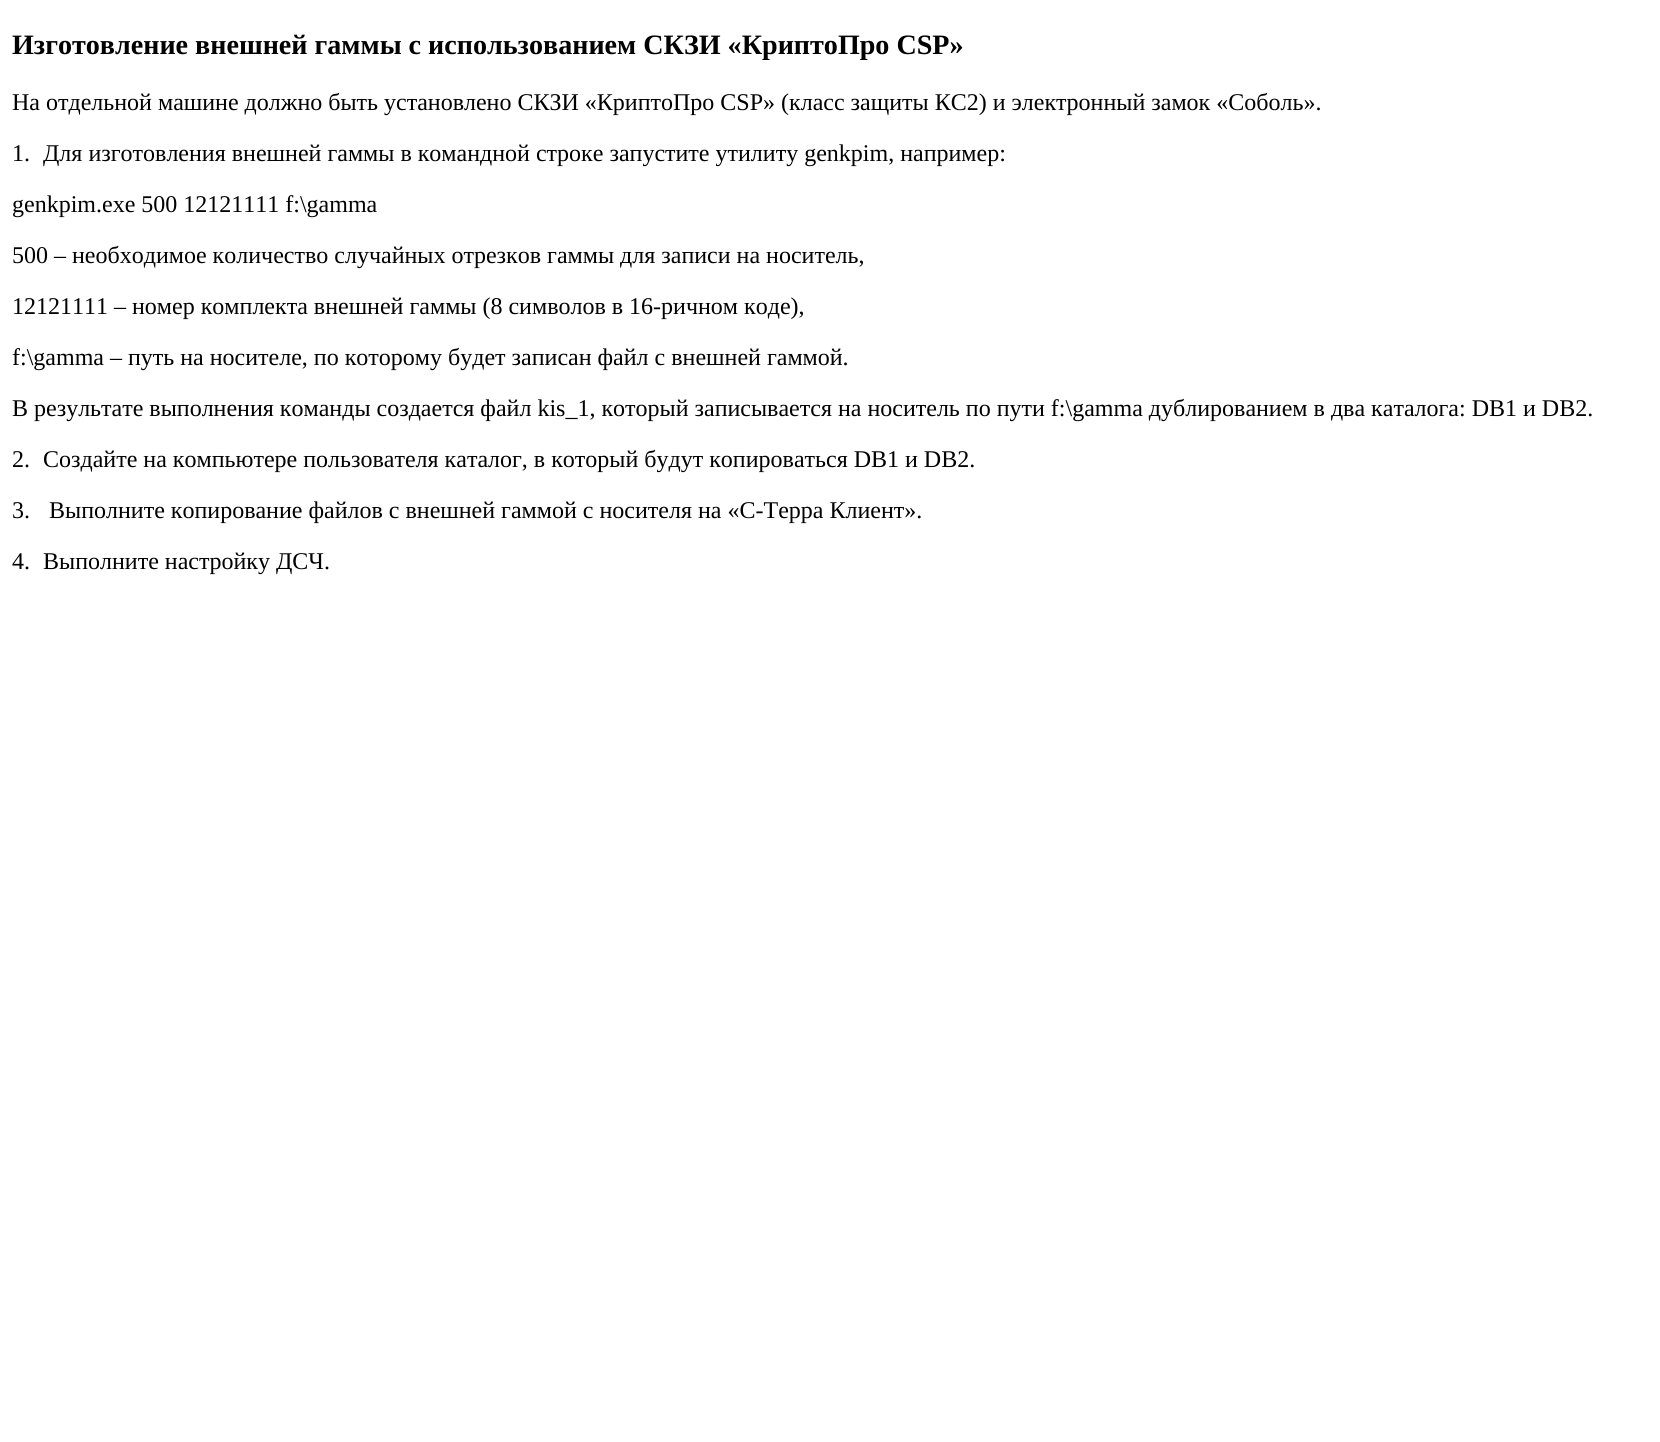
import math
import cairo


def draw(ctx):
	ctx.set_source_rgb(1, 1, 1)
	ctx.paint()
	ctx.select_font_face('Liberation Serif', cairo.FONT_SLANT_NORMAL, cairo.FONT_WEIGHT_BOLD)
	ctx.set_font_size(28.1)
	ctx.set_source_rgb(0, 0, 0)
	ctx.move_to(12, 54)
	ctx.show_text('Изготовление внешней гаммы с использованием СКЗИ «КриптоПро CSP»')
	ctx.select_font_face('Liberation Serif')
	ctx.set_font_size(24)
	for x, y, s in [
		(12, 110, 'На отдельной машине должно быть установлено СКЗИ «КриптоПро CSP» (класс защиты КС2) и электронный замок «Соболь».'),
		(12, 161, '1.'),
		(43, 161, 'Для изготовления внешней гаммы в командной строке запустите утилиту genkpim, например:'),
		(12, 212, 'genkpim.exe 500 12121111 f:\\gamma'),
		(12, 263, '500 – необходимое количество случайных отрезков гаммы для записи на носитель,'),
		(12, 314, '12121111 – номер комплекта внешней гаммы (8 символов в 16-ричном коде),'),
		(12, 365, 'f:\\gamma – путь на носителе, по которому будет записан файл с внешней гаммой.'),
		(12, 416, 'В результате выполнения команды создается файл kis_1, который записывается на носитель по пути f:\\gamma дублированием в два каталога: DB1 и DB2.'),
		(12, 467, '2.'),
		(43, 467, 'Создайте на компьютере пользователя каталог, в который будут копироваться DB1 и DB2.'),
		(12, 518, '3.'),
		(49, 518, 'Выполните копирование файлов с внешней гаммой с носителя на «С-Терра Клиент».'),
		(12, 569, '4.'),
		(43, 569, 'Выполните настройку ДСЧ.'),
	]:
		ctx.move_to(x, y)
		ctx.show_text(s)


surface = cairo.ImageSurface(cairo.FORMAT_RGB24, 1660, 1442)
ctx = cairo.Context(surface)
options = cairo.FontOptions()
options.set_hint_metrics(cairo.HINT_METRICS_OFF)
options.set_hint_style(cairo.HINT_STYLE_NONE)
ctx.set_font_options(options)
ctx.set_miter_limit(4)
draw(ctx)
surface.write_to_png('image.png')
